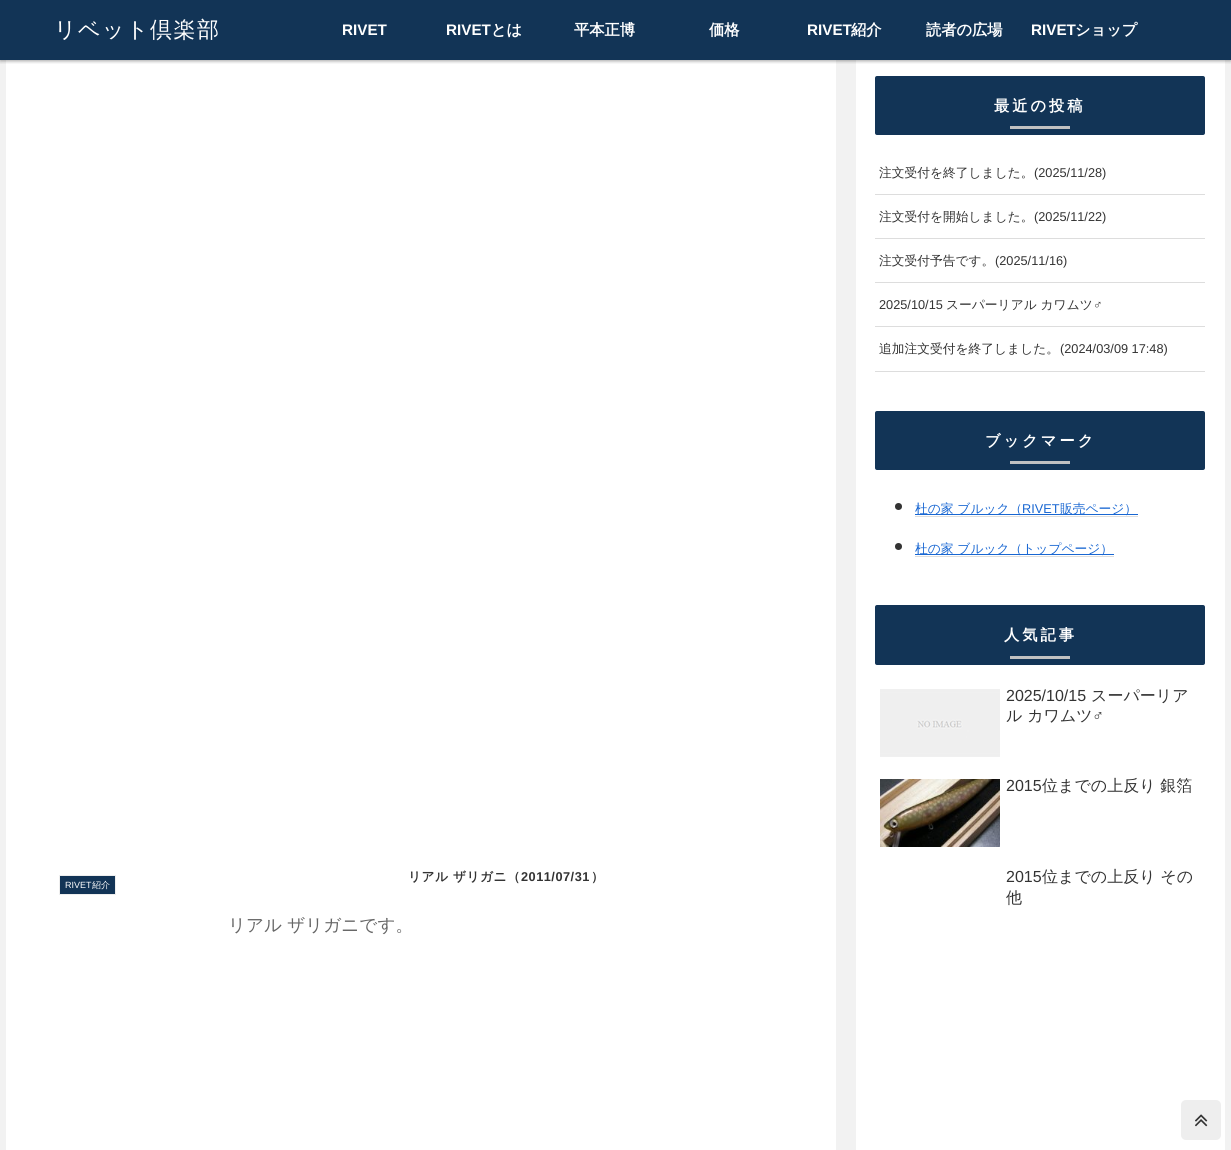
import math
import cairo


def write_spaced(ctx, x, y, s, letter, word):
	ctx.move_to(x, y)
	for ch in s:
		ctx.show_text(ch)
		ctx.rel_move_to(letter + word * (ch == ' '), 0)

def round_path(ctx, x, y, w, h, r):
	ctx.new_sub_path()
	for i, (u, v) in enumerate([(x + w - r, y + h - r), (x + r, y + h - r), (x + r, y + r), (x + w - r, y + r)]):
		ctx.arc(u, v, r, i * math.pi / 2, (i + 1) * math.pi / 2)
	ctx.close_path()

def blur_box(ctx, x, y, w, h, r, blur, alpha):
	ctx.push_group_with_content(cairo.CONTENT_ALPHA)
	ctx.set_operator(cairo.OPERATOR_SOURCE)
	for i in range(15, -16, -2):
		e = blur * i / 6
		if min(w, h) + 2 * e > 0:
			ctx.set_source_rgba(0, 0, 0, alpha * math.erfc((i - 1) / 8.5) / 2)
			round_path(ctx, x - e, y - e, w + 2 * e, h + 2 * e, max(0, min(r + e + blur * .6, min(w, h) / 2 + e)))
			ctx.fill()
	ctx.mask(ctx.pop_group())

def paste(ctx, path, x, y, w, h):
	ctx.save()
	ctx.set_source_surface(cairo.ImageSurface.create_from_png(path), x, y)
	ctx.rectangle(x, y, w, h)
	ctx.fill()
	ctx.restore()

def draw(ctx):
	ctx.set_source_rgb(0.949, 0.949, 0.949)
	ctx.paint()
	ctx.set_source_rgb(1, 1, 1)
	ctx.rectangle(6, 60, 830, 1090)
	ctx.fill()
	ctx.rectangle(856, 60, 369, 1090)
	ctx.fill()
	ctx.set_source_rgb(0, 0, 0)
	blur_box(ctx, 0, 1, 1231, 60, 0, 1.5, 0.25)
	ctx.set_source_rgb(0.071, 0.204, 0.337)
	ctx.rectangle(0, 0, 1231, 60)
	ctx.fill()
	ctx.save()
	ctx.rectangle(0, 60, 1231, 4)
	ctx.clip()
	ctx.set_source_rgb(0, 0, 0)
	blur_box(ctx, 0, 2, 1231, 60, 0, 2.5, 0.1)
	ctx.restore()
	ctx.select_font_face('WenQuanYi Zen Hei Medium')
	ctx.set_font_size(22)
	ctx.set_source_rgb(1, 1, 1)
	write_spaced(ctx, 54, 37, 'リベット倶楽部', 1.5, 0)
	ctx.select_font_face('Liberation Sans', cairo.FONT_SLANT_NORMAL, cairo.FONT_WEIGHT_BOLD)
	ctx.set_font_size(15.25)
	ctx.move_to(342, 35)
	ctx.show_text('RIVET')
	ctx.move_to(446, 35)
	ctx.show_text('RIVET')
	ctx.select_font_face('WenQuanYi Zen Hei', cairo.FONT_SLANT_NORMAL, cairo.FONT_WEIGHT_BOLD)
	for x, y, s in [
		(491, 35, 'とは'),
		(574, 35, '平本正博'),
		(709, 35, '価格'),
	]:
		ctx.move_to(x, y)
		ctx.show_text(s)
	ctx.select_font_face('Liberation Sans', cairo.FONT_SLANT_NORMAL, cairo.FONT_WEIGHT_BOLD)
	ctx.move_to(807, 35)
	ctx.show_text('RIVET')
	ctx.select_font_face('WenQuanYi Zen Hei', cairo.FONT_SLANT_NORMAL, cairo.FONT_WEIGHT_BOLD)
	ctx.move_to(851, 35)
	ctx.show_text('紹介')
	ctx.move_to(926, 35)
	ctx.show_text('読者の広場')
	ctx.select_font_face('Liberation Sans', cairo.FONT_SLANT_NORMAL, cairo.FONT_WEIGHT_BOLD)
	ctx.move_to(1031, 35)
	ctx.show_text('RIVET')
	ctx.select_font_face('WenQuanYi Zen Hei', cairo.FONT_SLANT_NORMAL, cairo.FONT_WEIGHT_BOLD)
	ctx.move_to(1075, 35)
	ctx.show_text('ショップ')
	ctx.set_source_rgb(0.071, 0.204, 0.337)
	ctx.rectangle(59.5, 875.5, 56, 19)
	ctx.fill_preserve()
	ctx.set_source_rgb(0.933, 0.933, 0.933)
	ctx.set_line_width(1)
	ctx.stroke()
	ctx.select_font_face('Liberation Sans')
	ctx.set_font_size(9)
	ctx.set_source_rgb(1, 1, 1)
	ctx.move_to(65, 888)
	ctx.show_text('RIVET')
	ctx.select_font_face('WenQuanYi Zen Hei Medium')
	ctx.move_to(92, 888)
	ctx.show_text('紹介')
	ctx.select_font_face('WenQuanYi Zen Hei', cairo.FONT_SLANT_NORMAL, cairo.FONT_WEIGHT_BOLD)
	ctx.set_font_size(12.75)
	ctx.set_source_rgb(0.2, 0.2, 0.2)
	write_spaced(ctx, 408, 881, 'リアル ザリガニ（', 0.5, 0)
	ctx.select_font_face('Liberation Sans', cairo.FONT_SLANT_NORMAL, cairo.FONT_WEIGHT_BOLD)
	write_spaced(ctx, 521, 881, '2011/07/31', 0.5, 0)
	ctx.select_font_face('WenQuanYi Zen Hei', cairo.FONT_SLANT_NORMAL, cairo.FONT_WEIGHT_BOLD)
	write_spaced(ctx, 591, 881, '）', 0.5, 0)
	ctx.select_font_face('WenQuanYi Zen Hei Medium')
	ctx.set_font_size(17.6)
	ctx.set_source_rgb(0.4, 0.4, 0.4)
	ctx.move_to(228, 931)
	ctx.show_text('リアル ザリガニです。')
	ctx.set_source_rgb(0.071, 0.204, 0.337)
	round_path(ctx, 875, 76, 330, 59, 2)
	ctx.fill()
	ctx.select_font_face('WenQuanYi Zen Hei', cairo.FONT_SLANT_NORMAL, cairo.FONT_WEIGHT_BOLD)
	ctx.set_font_size(15.25)
	ctx.set_source_rgb(1, 1, 1)
	write_spaced(ctx, 994, 111, '最近の投稿', 3, 0)
	ctx.set_source_rgb(0.753, 0.753, 0.753)
	ctx.rectangle(1010, 126, 60, 3)
	ctx.fill()
	ctx.set_source_rgb(0.867, 0.867, 0.867)
	ctx.rectangle(875, 194, 330, 1)
	ctx.fill()
	ctx.select_font_face('WenQuanYi Zen Hei Medium')
	ctx.set_font_size(12.75)
	ctx.set_source_rgb(0.2, 0.2, 0.2)
	ctx.move_to(879, 177)
	ctx.show_text('注文受付を終了しました。')
	ctx.select_font_face('Liberation Sans')
	ctx.move_to(1034, 177)
	ctx.show_text('(2025/11/28)')
	ctx.set_source_rgb(0.867, 0.867, 0.867)
	ctx.rectangle(875, 238, 330, 1)
	ctx.fill()
	ctx.select_font_face('WenQuanYi Zen Hei Medium')
	ctx.set_source_rgb(0.2, 0.2, 0.2)
	ctx.move_to(879, 221)
	ctx.show_text('注文受付を開始しました。')
	ctx.select_font_face('Liberation Sans')
	ctx.move_to(1034, 221)
	ctx.show_text('(2025/11/22)')
	ctx.set_source_rgb(0.867, 0.867, 0.867)
	ctx.rectangle(875, 282, 330, 1)
	ctx.fill()
	ctx.select_font_face('WenQuanYi Zen Hei Medium')
	ctx.set_source_rgb(0.2, 0.2, 0.2)
	ctx.move_to(879, 265)
	ctx.show_text('注文受付予告です。')
	ctx.select_font_face('Liberation Sans')
	ctx.move_to(995, 265)
	ctx.show_text('(2025/11/16)')
	ctx.set_source_rgb(0.867, 0.867, 0.867)
	ctx.rectangle(875, 326, 330, 1)
	ctx.fill()
	ctx.set_source_rgb(0.2, 0.2, 0.2)
	ctx.move_to(879, 309)
	ctx.show_text('2025/10/15')
	ctx.select_font_face('WenQuanYi Zen Hei Medium')
	ctx.move_to(946, 309)
	ctx.show_text('スーパーリアル カワムツ')
	ctx.select_font_face('Liberation Sans')
	ctx.move_to(1093, 309)
	ctx.show_text('♂')
	ctx.set_source_rgb(0.867, 0.867, 0.867)
	ctx.rectangle(875, 371, 330, 1)
	ctx.fill()
	ctx.select_font_face('WenQuanYi Zen Hei Medium')
	ctx.set_source_rgb(0.2, 0.2, 0.2)
	ctx.move_to(879, 353)
	ctx.show_text('追加注文受付を終了しました。')
	ctx.select_font_face('Liberation Sans')
	ctx.move_to(1060, 353)
	ctx.show_text('(2024/03/09 17:48)')
	ctx.set_source_rgb(0.071, 0.204, 0.337)
	round_path(ctx, 875, 411, 330, 59, 2)
	ctx.fill()
	ctx.select_font_face('WenQuanYi Zen Hei', cairo.FONT_SLANT_NORMAL, cairo.FONT_WEIGHT_BOLD)
	ctx.set_font_size(15.25)
	ctx.set_source_rgb(1, 1, 1)
	write_spaced(ctx, 985, 446, 'ブックマーク', 3, 0)
	ctx.set_source_rgb(0.753, 0.753, 0.753)
	ctx.rectangle(1010, 461, 60, 3)
	ctx.fill()
	ctx.set_source_rgb(0.2, 0.2, 0.2)
	ctx.arc(898.5, 506.5, 3.5, 0, 2 * math.pi)
	ctx.fill()
	ctx.set_source_rgb(0.098, 0.404, 0.824)
	ctx.rectangle(915, 514, 223, 1)
	ctx.fill()
	ctx.select_font_face('WenQuanYi Zen Hei Medium')
	ctx.set_font_size(12.75)
	ctx.move_to(915, 513)
	ctx.show_text('杜の家 ブルック（')
	ctx.set_source_rgb(0.867, 0.867, 0.867)
	ctx.rectangle(915, 516, 223, 1)
	ctx.fill()
	ctx.select_font_face('Liberation Sans')
	ctx.set_source_rgb(0.098, 0.404, 0.824)
	ctx.move_to(1022, 513)
	ctx.show_text('RIVET')
	ctx.select_font_face('WenQuanYi Zen Hei Medium')
	ctx.move_to(1060, 513)
	ctx.show_text('販売ページ）')
	ctx.set_source_rgb(0.2, 0.2, 0.2)
	ctx.new_path()
	ctx.arc(898.5, 546.5, 3.5, 0, 2 * math.pi)
	ctx.fill()
	ctx.set_source_rgb(0.098, 0.404, 0.824)
	ctx.rectangle(915, 554, 199, 1)
	ctx.fill()
	ctx.move_to(915, 553)
	ctx.show_text('杜の家 ブルック（トップページ）')
	ctx.set_source_rgb(0.867, 0.867, 0.867)
	ctx.rectangle(915, 556, 199, 1)
	ctx.fill()
	ctx.set_source_rgb(0.071, 0.204, 0.337)
	round_path(ctx, 875, 605, 330, 60, 2)
	ctx.fill()
	ctx.select_font_face('WenQuanYi Zen Hei', cairo.FONT_SLANT_NORMAL, cairo.FONT_WEIGHT_BOLD)
	ctx.set_font_size(15.25)
	ctx.set_source_rgb(1, 1, 1)
	write_spaced(ctx, 1004, 640, '人気記事', 3, 0)
	ctx.set_source_rgb(0.753, 0.753, 0.753)
	ctx.rectangle(1010, 656, 60, 3)
	ctx.fill()
	paste(ctx, 'media/1.png', 880, 689, 120, 68)
	ctx.select_font_face('Liberation Sans')
	ctx.set_font_size(16)
	ctx.set_source_rgb(0.2, 0.2, 0.2)
	ctx.move_to(1006, 701)
	ctx.show_text('2025/10/15')
	ctx.select_font_face('WenQuanYi Zen Hei Medium')
	ctx.move_to(1091, 701)
	ctx.show_text('スーパーリア')
	ctx.move_to(1006, 721)
	ctx.show_text('ル カワムツ')
	ctx.select_font_face('Liberation Sans')
	ctx.move_to(1092, 721)
	ctx.show_text('♂')
	paste(ctx, 'media/2.png', 880, 779, 120, 68)
	ctx.move_to(1006, 791)
	ctx.show_text('2015')
	ctx.select_font_face('WenQuanYi Zen Hei Medium')
	ctx.move_to(1042, 791)
	ctx.show_text('位までの上反り 銀箔')
	ctx.select_font_face('Liberation Sans')
	ctx.move_to(1006, 882)
	ctx.show_text('2015')
	ctx.select_font_face('WenQuanYi Zen Hei Medium')
	ctx.move_to(1042, 882)
	ctx.show_text('位までの上反り その')
	ctx.move_to(1006, 903)
	ctx.show_text('他')
	ctx.set_source_rgb(0.933, 0.933, 0.933)
	round_path(ctx, 1181, 1100, 40, 40, 5)
	ctx.fill()
	paste(ctx, 'media/3.png', 1195, 1114, 13, 13)


surface = cairo.ImageSurface(cairo.FORMAT_RGB24, 1231, 1150)
ctx = cairo.Context(surface)
options = cairo.FontOptions()
options.set_hint_metrics(cairo.HINT_METRICS_OFF)
options.set_hint_style(cairo.HINT_STYLE_NONE)
ctx.set_font_options(options)
ctx.set_miter_limit(4)
draw(ctx)
surface.write_to_png('image.png')
